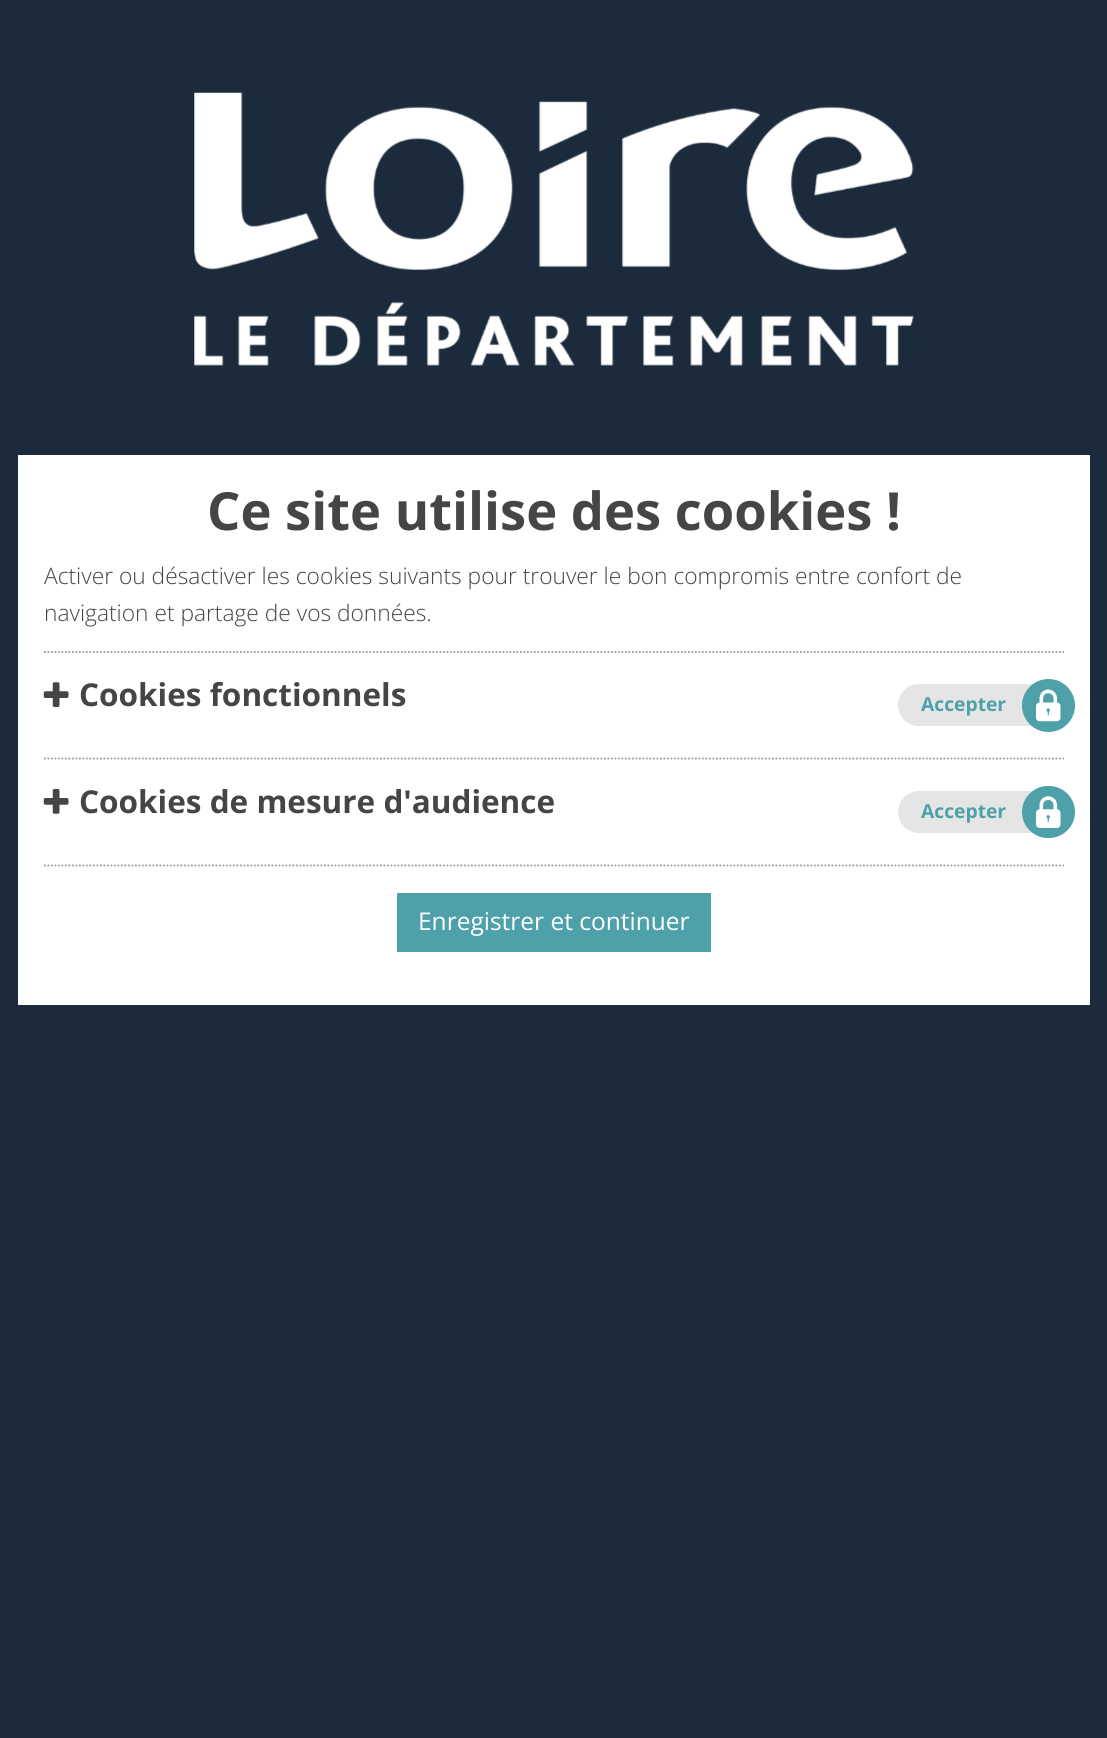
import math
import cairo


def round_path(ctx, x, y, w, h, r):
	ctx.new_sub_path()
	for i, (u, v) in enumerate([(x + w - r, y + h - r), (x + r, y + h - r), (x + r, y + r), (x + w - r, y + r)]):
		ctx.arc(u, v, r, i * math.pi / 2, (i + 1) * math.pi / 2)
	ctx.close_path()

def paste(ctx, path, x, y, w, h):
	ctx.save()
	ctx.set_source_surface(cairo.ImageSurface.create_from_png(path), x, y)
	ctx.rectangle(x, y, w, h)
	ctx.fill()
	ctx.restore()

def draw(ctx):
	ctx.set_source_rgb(0.106, 0.169, 0.231)
	ctx.paint()
	ctx.set_source_rgb(1, 1, 1)
	ctx.rectangle(18, 455, 1072, 550)
	ctx.fill()
	paste(ctx, 'media/1.png', 194, 92, 720, 274)
	ctx.select_font_face('Open Sans', cairo.FONT_SLANT_NORMAL, cairo.FONT_WEIGHT_BOLD)
	ctx.set_font_size(52.5)
	ctx.set_source_rgb(0.271, 0.271, 0.271)
	ctx.move_to(207, 530)
	ctx.show_text('Ce site utilise des cookies !')
	ctx.select_font_face('Open Sans Light')
	ctx.set_font_size(22.75)
	ctx.move_to(44, 584)
	ctx.show_text('Activer ou désactiver les cookies suivants pour trouver le bon compromis entre confort de')
	ctx.move_to(44, 621)
	ctx.show_text('navigation et partage de vos données.')
	ctx.new_path()
	ctx.move_to(44, 652)
	ctx.line_to(1064, 652)
	ctx.set_source_rgb(0.6, 0.6, 0.6)
	ctx.set_line_width(1.8)
	ctx.set_dash([1.75, 1.75])
	ctx.stroke()
	ctx.new_path()
	ctx.move_to(44, 758.5)
	ctx.line_to(1064, 758.5)
	ctx.stroke()
	paste(ctx, 'media/2.png', 43, 682, 26, 25)
	ctx.select_font_face('Open Sans', cairo.FONT_SLANT_NORMAL, cairo.FONT_WEIGHT_BOLD)
	ctx.set_font_size(31.5)
	ctx.set_source_rgb(0.271, 0.271, 0.271)
	ctx.move_to(79, 706)
	ctx.show_text('Cookies fonctionnels')
	ctx.set_source_rgb(0.898, 0.898, 0.898)
	round_path(ctx, 898, 684, 166, 42, 21)
	ctx.fill()
	ctx.set_source_rgb(0.306, 0.631, 0.663)
	ctx.arc(1048.5, 705.5, 26.5, 0, 2 * math.pi)
	ctx.fill()
	paste(ctx, 'media/3.png', 1036, 689, 25, 33)
	ctx.set_font_size(19.25)
	ctx.move_to(921, 711)
	ctx.show_text('Accepter')
	ctx.new_path()
	ctx.move_to(44, 865.5)
	ctx.line_to(1064, 865.5)
	ctx.set_source_rgb(0.6, 0.6, 0.6)
	ctx.stroke()
	paste(ctx, 'media/4.png', 43, 789, 26, 25)
	ctx.set_font_size(31.5)
	ctx.set_source_rgb(0.271, 0.271, 0.271)
	ctx.move_to(79, 813)
	ctx.show_text('Cookies de mesure d\'audience')
	ctx.set_source_rgb(0.898, 0.898, 0.898)
	round_path(ctx, 898, 791, 166, 42, 21)
	ctx.fill()
	ctx.set_source_rgb(0.306, 0.631, 0.663)
	round_path(ctx, 1022, 786, 53, 52, 26)
	ctx.fill()
	paste(ctx, 'media/5.png', 1036, 796, 25, 32)
	ctx.set_font_size(19.25)
	ctx.move_to(921, 818)
	ctx.show_text('Accepter')
	ctx.rectangle(397, 893, 314, 59)
	ctx.fill()
	ctx.select_font_face('Open Sans')
	ctx.set_font_size(24.5)
	ctx.set_source_rgb(1, 1, 1)
	ctx.move_to(418, 930)
	ctx.show_text('Enregistrer et continuer')


surface = cairo.ImageSurface(cairo.FORMAT_RGB24, 1107, 1738)
ctx = cairo.Context(surface)
options = cairo.FontOptions()
options.set_hint_metrics(cairo.HINT_METRICS_OFF)
options.set_hint_style(cairo.HINT_STYLE_NONE)
ctx.set_font_options(options)
ctx.set_miter_limit(4)
draw(ctx)
surface.write_to_png('image.png')
